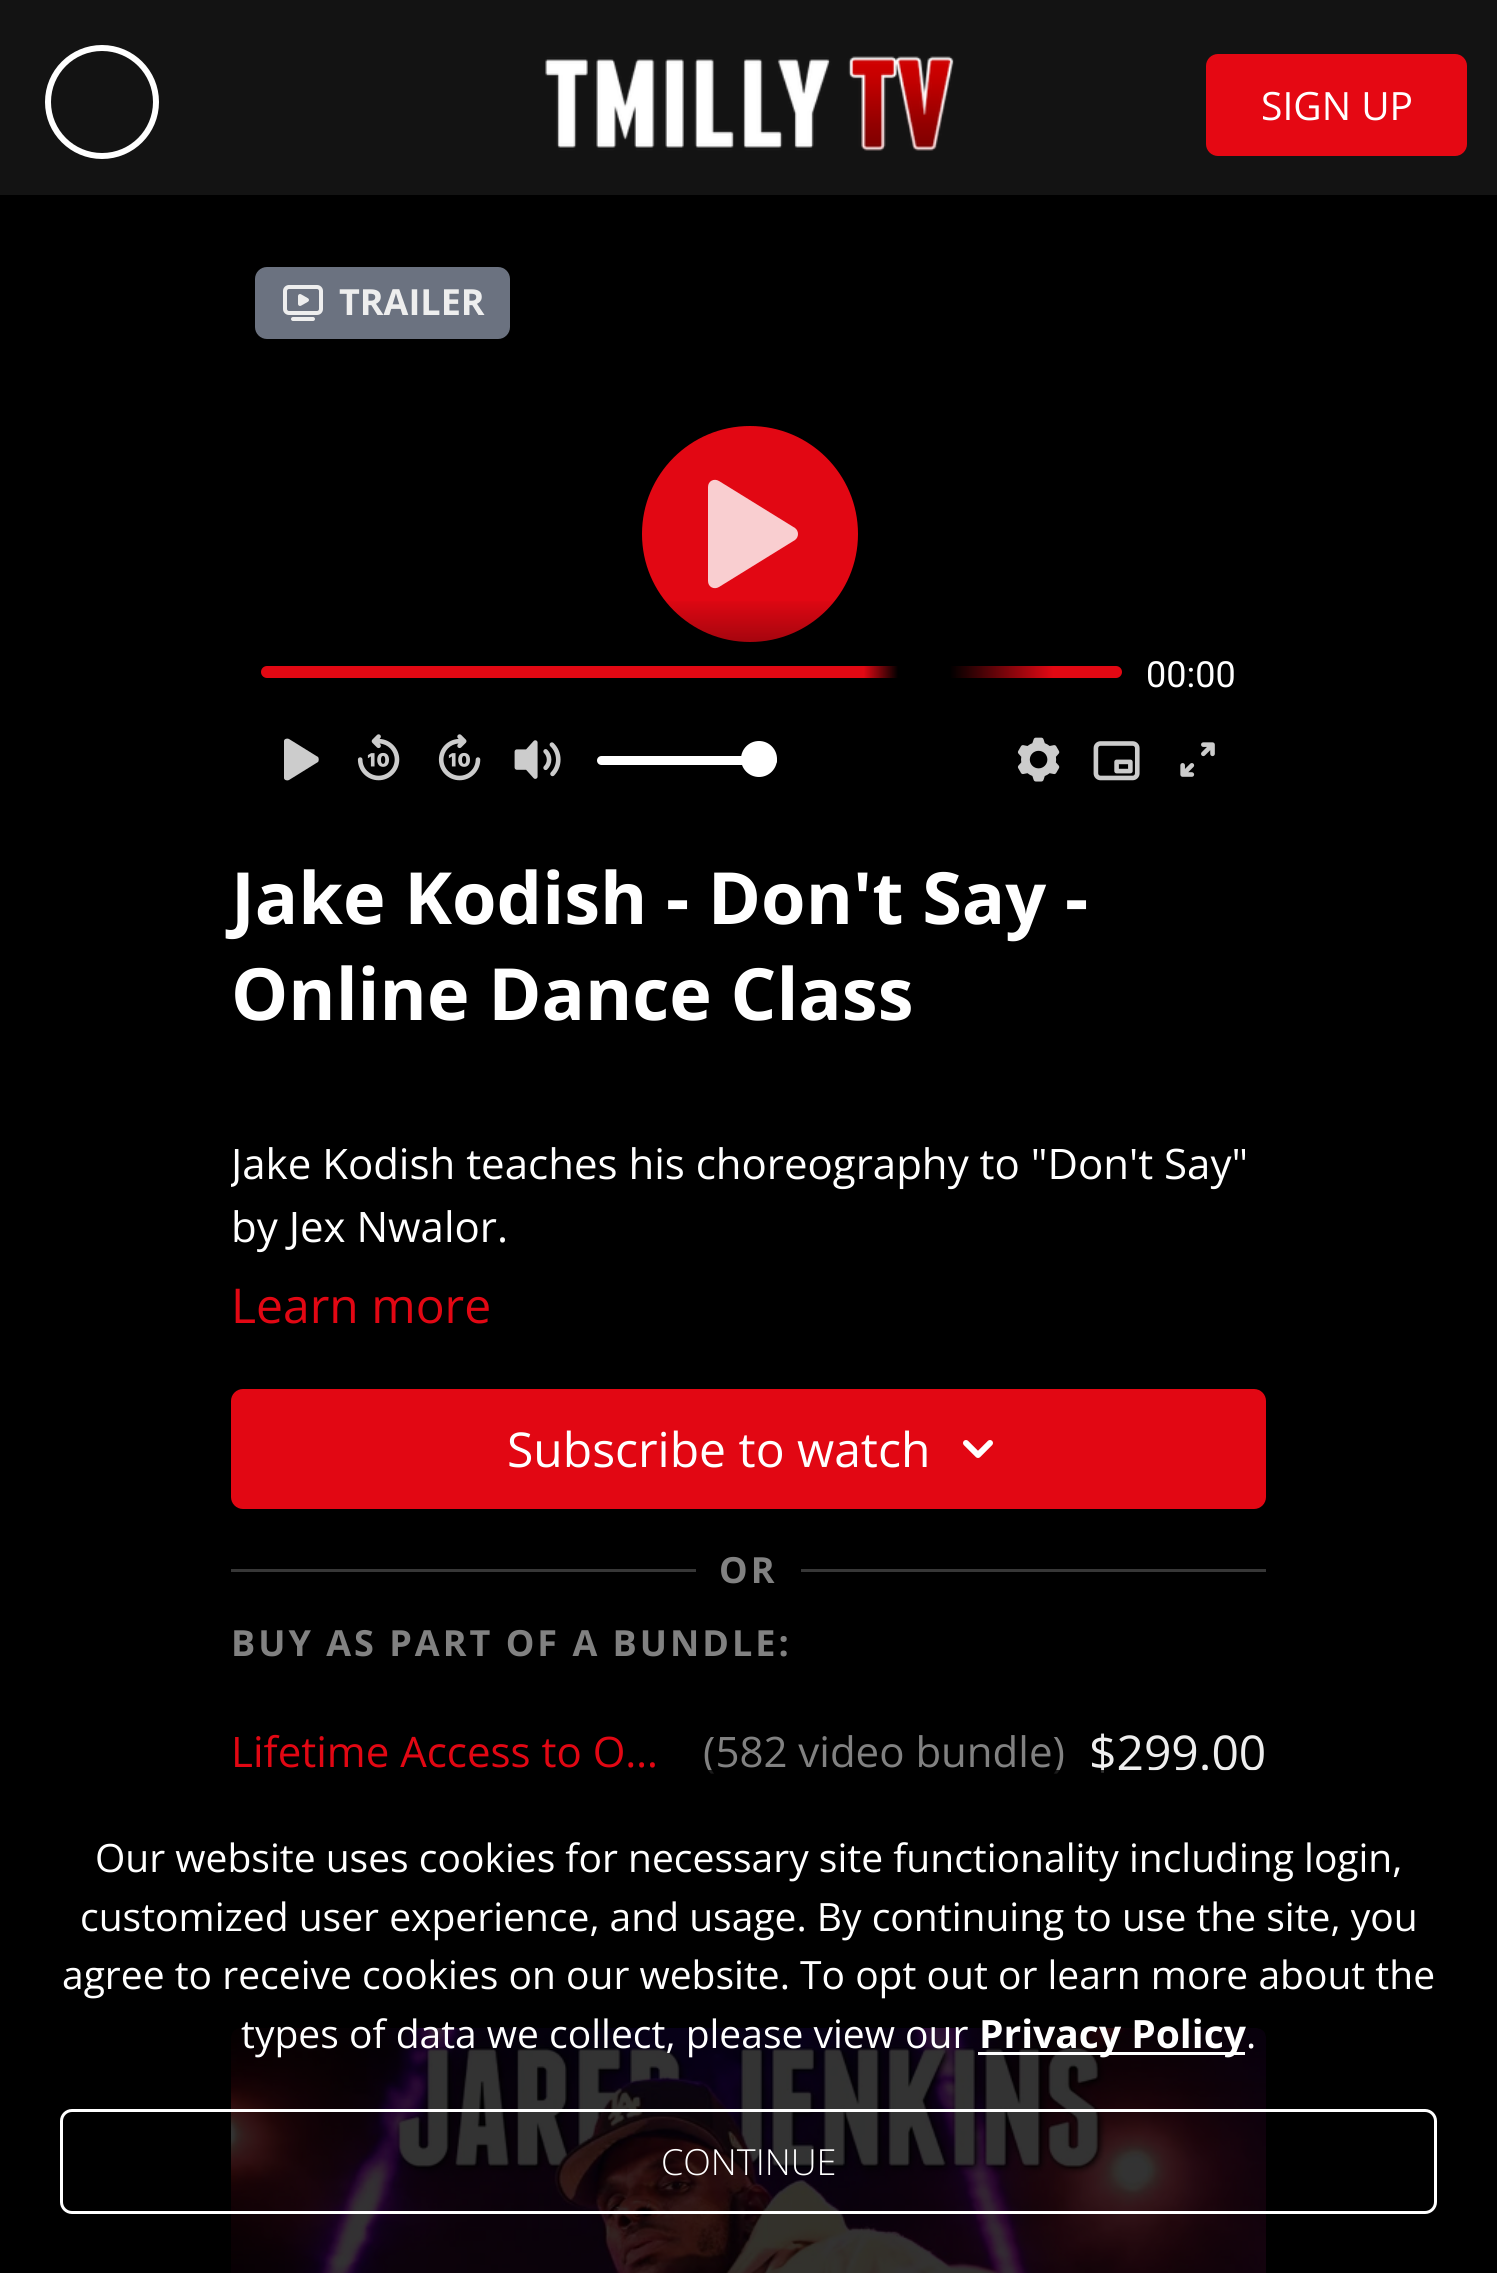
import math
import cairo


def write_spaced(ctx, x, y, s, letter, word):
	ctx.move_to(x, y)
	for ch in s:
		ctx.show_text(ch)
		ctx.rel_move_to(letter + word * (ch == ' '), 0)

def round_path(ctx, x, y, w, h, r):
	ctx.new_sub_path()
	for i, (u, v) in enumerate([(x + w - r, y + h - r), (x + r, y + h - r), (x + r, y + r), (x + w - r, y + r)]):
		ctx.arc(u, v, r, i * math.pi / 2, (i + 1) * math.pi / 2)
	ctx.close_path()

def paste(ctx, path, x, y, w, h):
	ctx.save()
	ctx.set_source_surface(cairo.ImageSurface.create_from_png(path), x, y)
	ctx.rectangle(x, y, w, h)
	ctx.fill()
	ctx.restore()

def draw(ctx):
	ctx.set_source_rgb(0.078, 0.078, 0.078)
	ctx.paint()
	ctx.arc(102, 102, 54, 0, 2 * math.pi)
	ctx.set_source_rgb(1, 1, 1)
	ctx.set_line_width(6)
	ctx.stroke()
	paste(ctx, 'media/1.png', 545, 56, 409, 95)
	ctx.set_source_rgb(0.898, 0.035, 0.078)
	round_path(ctx, 1210.5, 58.5, 252, 93, 7.5)
	ctx.fill_preserve()
	ctx.set_line_width(9)
	ctx.stroke()
	ctx.select_font_face('Open Sans')
	ctx.set_font_size(39)
	ctx.set_source_rgb(1, 1, 1)
	ctx.move_to(1261, 120)
	ctx.show_text('SIGN UP')
	ctx.set_source_rgb(0, 0, 0)
	ctx.rectangle(0, 195, 1497, 2078)
	ctx.fill()
	ctx.set_source_rgb(0.42, 0.447, 0.502)
	round_path(ctx, 255, 267, 255, 72, 12)
	ctx.fill()
	paste(ctx, 'media/2.png', 283, 285, 40, 36)
	ctx.select_font_face('Open Sans', cairo.FONT_SLANT_NORMAL, cairo.FONT_WEIGHT_BOLD)
	ctx.set_font_size(36)
	ctx.set_source_rgb(0.933, 0.933, 0.933)
	ctx.move_to(339, 315)
	ctx.show_text('TRAILER')
	ctx.set_source_rgb(0.886, 0.031, 0.075)
	ctx.new_path()
	ctx.arc(750, 534, 108, 0, 2 * math.pi)
	ctx.fill()
	ctx.set_source_rgb(0.976, 0.808, 0.816)
	ctx.new_path()
	ctx.move_to(719, 481)
	ctx.curve_to(714, 478, 708, 481, 708, 487)
	ctx.line_to(708, 581)
	ctx.curve_to(708, 587, 714, 590, 719, 587)
	ctx.line_to(795, 540)
	ctx.curve_to(799, 537, 799, 531, 795, 528)
	ctx.close_path()
	ctx.fill()
	gradient = cairo.LinearGradient(749, 825, 749, 588)
	gradient.add_color_stop_rgba(0.54, 0, 0, 0, 0.6)
	gradient.add_color_stop_rgba(0.96, 0, 0, 0, 0)
	ctx.set_source(gradient)
	ctx.rectangle(666, 601, 168, 41)
	ctx.fill()
	gradient = cairo.LinearGradient(261, 678, 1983, 678)
	gradient.add_color_stop_rgba(0.35, 0.886, 0.031, 0.075, 1)
	gradient.add_color_stop_rgba(0.37, 0, 0, 0, 1)
	gradient.add_color_stop_rgba(0.4, 0, 0, 0, 1)
	gradient.add_color_stop_rgba(0.46, 0.886, 0.031, 0.075, 1)
	gradient.add_color_stop_rgba(1, 0.886, 0.031, 0.075, 1)
	ctx.set_source(gradient)
	round_path(ctx, 261, 666, 861, 12, 6)
	ctx.fill()
	ctx.select_font_face('Roboto')
	ctx.set_source_rgb(1, 1, 1)
	ctx.move_to(1146, 687)
	ctx.show_text('00:00')
	ctx.set_source_rgb(0.8, 0.8, 0.8)
	ctx.new_path()
	ctx.move_to(289, 739)
	ctx.curve_to(287, 738, 284, 739, 284, 741)
	ctx.line_to(284, 778)
	ctx.curve_to(284, 780, 287, 781, 289, 780)
	ctx.line_to(318, 762)
	ctx.curve_to(319, 761, 319, 758, 318, 757)
	ctx.close_path()
	ctx.fill()
	paste(ctx, 'media/3.png', 357, 734, 43, 47)
	paste(ctx, 'media/4.png', 438, 734, 43, 47)
	paste(ctx, 'media/5.png', 514, 740, 47, 39)
	ctx.set_source_rgb(1, 1, 1)
	round_path(ctx, 597, 756, 180, 9, 4.5)
	ctx.fill()
	ctx.arc(759, 759, 18, 0, 2 * math.pi)
	ctx.fill()
	paste(ctx, 'media/6.png', 1017, 737, 43, 45)
	paste(ctx, 'media/7.png', 1093, 741, 47, 40)
	paste(ctx, 'media/8.png', 1180, 742, 35, 35)
	ctx.select_font_face('Open Sans', cairo.FONT_SLANT_NORMAL, cairo.FONT_WEIGHT_BOLD)
	ctx.set_font_size(72)
	ctx.move_to(231, 924)
	ctx.show_text('Jake Kodish - Don\'t Say -')
	ctx.move_to(231, 1020)
	ctx.show_text('Online Dance Class')
	ctx.save()
	ctx.rectangle(231, 1089, 1035, 180)
	ctx.clip()
	ctx.select_font_face('Open Sans')
	ctx.set_font_size(42)
	ctx.move_to(231, 1179)
	ctx.show_text('Jake Kodish teaches his choreography to "Don\'t Say"')
	ctx.restore()
	ctx.select_font_face('Open Sans')
	ctx.set_font_size(42)
	ctx.move_to(231, 1242)
	ctx.show_text('by Jex Nwalor.')
	ctx.set_font_size(48)
	ctx.set_source_rgb(0.886, 0.031, 0.075)
	ctx.move_to(231, 1323)
	ctx.show_text('Learn more')
	round_path(ctx, 231, 1389, 1035, 120, 12)
	ctx.fill()
	ctx.set_source_rgb(1, 1, 1)
	ctx.move_to(507, 1467)
	ctx.show_text('Subscribe to watch')
	paste(ctx, 'media/9.png', 963, 1440, 30, 18)
	ctx.set_source_rgb(0.216, 0.216, 0.216)
	ctx.rectangle(231, 1569, 1035, 3)
	ctx.fill()
	ctx.set_source_rgb(0, 0, 0)
	ctx.rectangle(696, 1569, 105, 3)
	ctx.fill()
	ctx.select_font_face('Open Sans', cairo.FONT_SLANT_NORMAL, cairo.FONT_WEIGHT_BOLD)
	ctx.set_font_size(36)
	ctx.set_source_rgb(0.506, 0.506, 0.506)
	write_spaced(ctx, 719, 1583, 'OR', 3, 0)
	write_spaced(ctx, 231, 1656, 'BUY AS PART OF A BUNDLE:', 3, 0)
	ctx.select_font_face('Open Sans')
	ctx.set_font_size(42)
	ctx.set_source_rgb(0.886, 0.031, 0.075)
	ctx.move_to(231, 1767)
	ctx.show_text('Lifetime Access to O…')
	ctx.set_source_rgb(0.506, 0.506, 0.506)
	ctx.move_to(703, 1767)
	ctx.show_text('(582 video bundle)')
	ctx.set_font_size(48)
	ctx.set_source_rgb(0.933, 0.933, 0.933)
	ctx.move_to(1089, 1770)
	ctx.show_text('$299.00')
	paste(ctx, 'media/10.png', 231, 2028, 1035, 245)
	ctx.set_source_rgba(0, 0, 0, 0.8)
	ctx.rectangle(231, 1770, 1035, 503)
	ctx.fill()
	ctx.set_font_size(39)
	ctx.set_source_rgb(1, 1, 1)
	for x, y, s in [
		(95, 1872, 'Our website uses cookies for necessary site functionality including login,'),
		(80, 1931, 'customized user experience, and usage. By continuing to use the site, you'),
		(62, 1989, 'agree to receive cookies on our website. To opt out or learn more about the'),
		(241, 2048, 'types of data we collect, please view our'),
	]:
		ctx.move_to(x, y)
		ctx.show_text(s)
	ctx.rectangle(978, 2052, 267, 3)
	ctx.fill()
	ctx.select_font_face('Open Sans', cairo.FONT_SLANT_NORMAL, cairo.FONT_WEIGHT_BOLD)
	ctx.move_to(979, 2048)
	ctx.show_text('Privacy Policy')
	ctx.select_font_face('Open Sans')
	ctx.move_to(1246, 2048)
	ctx.show_text('.')
	round_path(ctx, 61.5, 2110.5, 1374, 102, 10.5)
	ctx.set_line_width(3)
	ctx.stroke()
	ctx.select_font_face('Open Sans Light')
	ctx.set_font_size(36)
	ctx.move_to(661, 2175)
	ctx.show_text('CONTINUE')


surface = cairo.ImageSurface(cairo.FORMAT_RGB24, 1497, 2273)
ctx = cairo.Context(surface)
options = cairo.FontOptions()
options.set_hint_metrics(cairo.HINT_METRICS_OFF)
options.set_hint_style(cairo.HINT_STYLE_NONE)
ctx.set_font_options(options)
ctx.set_miter_limit(4)
draw(ctx)
surface.write_to_png('image.png')
